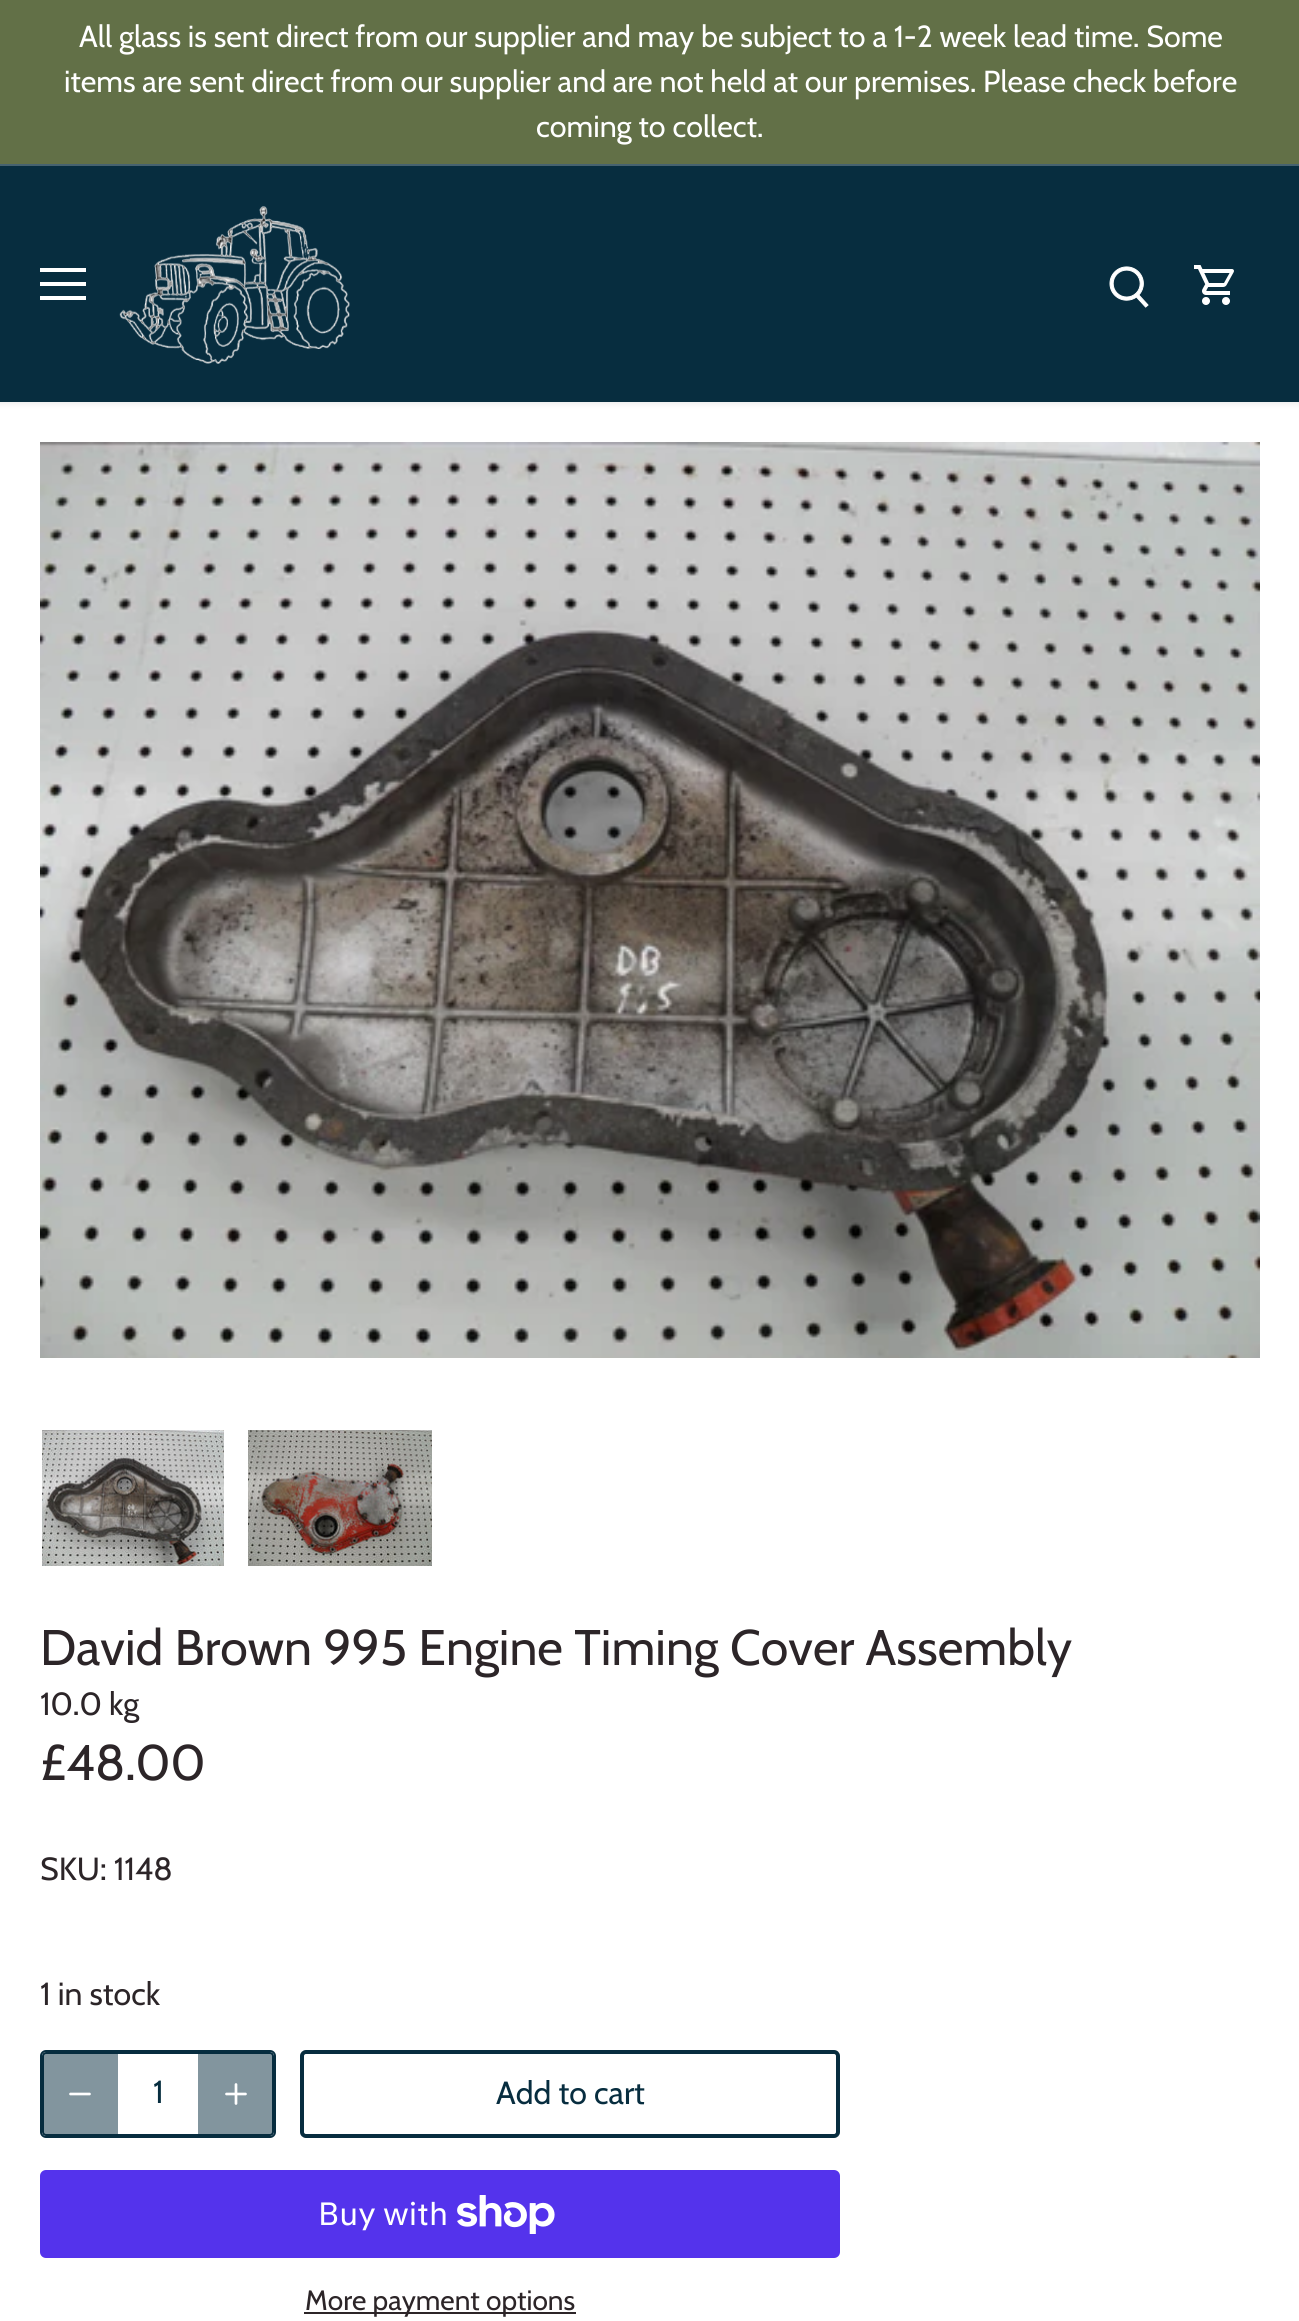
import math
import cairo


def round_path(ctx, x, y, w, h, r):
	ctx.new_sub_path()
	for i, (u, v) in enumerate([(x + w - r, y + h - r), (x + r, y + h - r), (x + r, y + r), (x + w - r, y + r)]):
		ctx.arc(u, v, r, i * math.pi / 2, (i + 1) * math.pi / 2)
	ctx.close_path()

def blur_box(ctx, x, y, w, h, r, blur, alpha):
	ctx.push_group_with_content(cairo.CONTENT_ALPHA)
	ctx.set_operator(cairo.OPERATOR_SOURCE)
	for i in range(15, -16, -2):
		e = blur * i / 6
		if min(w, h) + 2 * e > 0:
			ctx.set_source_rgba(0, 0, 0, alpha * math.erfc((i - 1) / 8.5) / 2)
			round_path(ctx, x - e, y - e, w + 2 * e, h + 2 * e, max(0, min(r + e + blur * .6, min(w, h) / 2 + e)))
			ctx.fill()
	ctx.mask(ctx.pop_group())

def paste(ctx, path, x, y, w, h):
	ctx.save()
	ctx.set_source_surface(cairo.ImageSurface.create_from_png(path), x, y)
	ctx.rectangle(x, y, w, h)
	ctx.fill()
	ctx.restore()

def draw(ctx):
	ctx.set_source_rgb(1, 1, 1)
	ctx.paint()
	ctx.set_source_rgb(0, 0, 0)
	blur_box(ctx, -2, 164, 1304, 240, 0, 3, 0.08)
	ctx.set_source_rgb(0.384, 0.439, 0.278)
	ctx.rectangle(0, 0, 1299, 164)
	ctx.fill()
	ctx.set_source_rgb(0.275, 0.384, 0.435)
	ctx.rectangle(0, 164, 1299, 2)
	ctx.fill()
	ctx.select_font_face('Cabin')
	ctx.set_font_size(30.4)
	ctx.set_source_rgb(1, 1, 1)
	for x, y, s in [
		(79, 47, 'All glass is sent direct from our supplier and may be subject to a 1-2 week lead time. Some'),
		(64, 92, 'items are sent direct from our supplier and are not held at our premises. Please check before'),
		(536, 137, 'coming to collect.'),
	]:
		ctx.move_to(x, y)
		ctx.show_text(s)
	ctx.set_source_rgb(0.031, 0.176, 0.247)
	ctx.rectangle(0, 166, 1299, 236)
	ctx.fill()
	ctx.set_source_rgb(1, 1, 1)
	ctx.rectangle(40, 268, 46, 4)
	ctx.rectangle(40, 282, 46, 4)
	ctx.rectangle(40, 296, 46, 4)
	ctx.fill()
	paste(ctx, 'media/1.png', 119, 206, 231, 158)
	paste(ctx, 'media/2.png', 1109, 266, 40, 42)
	paste(ctx, 'media/3.png', 1194, 265, 40, 40)
	paste(ctx, 'media/4.png', 40, 442, 1220, 916)
	paste(ctx, 'media/5.png', 42, 1430, 182, 136)
	paste(ctx, 'media/6.png', 248, 1430, 184, 136)
	ctx.set_font_size(50)
	ctx.set_source_rgb(0.173, 0.145, 0.157)
	ctx.move_to(40, 1665)
	ctx.show_text('David Brown 995 Engine Timing Cover Assembly')
	ctx.set_font_size(32)
	ctx.move_to(40, 1715)
	ctx.show_text('10.0 kg')
	ctx.set_font_size(50)
	ctx.move_to(40, 1780)
	ctx.show_text('£48.00')
	ctx.set_font_size(32)
	ctx.move_to(40, 1880)
	ctx.show_text('SKU: 1148')
	ctx.move_to(40, 2005)
	ctx.show_text('1 in stock')
	round_path(ctx, 43, 2053, 230, 82, 3)
	ctx.set_source_rgb(0.031, 0.176, 0.247)
	ctx.stroke()
	round_path(ctx, 41, 2051, 234, 86, 5)
	ctx.stroke()
	ctx.set_source_rgba(0.031, 0.176, 0.247, 0.5)
	ctx.new_path()
	ctx.move_to(48, 2052)
	ctx.line_to(118, 2052)
	ctx.line_to(118, 2136)
	ctx.line_to(48, 2136)
	ctx.curve_to(44.5, 2136, 42, 2133.5, 42, 2130)
	ctx.line_to(42, 2058)
	ctx.curve_to(42, 2054.5, 44.5, 2052, 48, 2052)
	ctx.close_path()
	ctx.fill()
	ctx.new_path()
	ctx.move_to(70.5, 2094)
	ctx.line_to(89.5, 2094)
	ctx.set_source_rgb(1, 1, 1)
	ctx.set_line_width(2.7)
	ctx.set_line_cap(cairo.LINE_CAP_ROUND)
	ctx.set_line_join(cairo.LINE_JOIN_ROUND)
	ctx.stroke()
	ctx.set_source_rgb(0.031, 0.176, 0.247)
	ctx.move_to(153, 2103)
	ctx.show_text('1')
	ctx.set_source_rgba(0.031, 0.176, 0.247, 0.5)
	ctx.new_path()
	ctx.move_to(198, 2052)
	ctx.line_to(268, 2052)
	ctx.curve_to(271.5, 2052, 274, 2054.5, 274, 2058)
	ctx.line_to(274, 2130)
	ctx.curve_to(274, 2133.5, 271.5, 2136, 268, 2136)
	ctx.line_to(198, 2136)
	ctx.close_path()
	ctx.fill()
	ctx.new_path()
	ctx.move_to(236, 2084.5)
	ctx.line_to(236, 2103.5)
	ctx.move_to(226.5, 2094)
	ctx.line_to(245.5, 2094)
	ctx.set_source_rgb(1, 1, 1)
	ctx.stroke()
	round_path(ctx, 302, 2052, 536, 84, 4)
	ctx.set_source_rgb(0.031, 0.176, 0.247)
	ctx.set_line_width(4)
	ctx.set_line_cap(cairo.LINE_CAP_BUTT)
	ctx.set_line_join(cairo.LINE_JOIN_MITER)
	ctx.stroke()
	ctx.move_to(496, 2104)
	ctx.show_text('Add to cart')
	ctx.set_source_rgb(0.329, 0.2, 0.922)
	round_path(ctx, 40, 2170, 800, 88, 6)
	ctx.fill()
	ctx.select_font_face('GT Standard')
	ctx.set_source_rgb(1, 1, 1)
	ctx.move_to(318, 2225)
	ctx.show_text('Buy with')
	paste(ctx, 'media/7.png', 457, 2195, 98, 39)
	ctx.set_source_rgb(0.173, 0.145, 0.157)
	ctx.rectangle(304, 2312, 272, 2)
	ctx.fill()
	ctx.select_font_face('Cabin')
	ctx.set_font_size(28)
	ctx.move_to(305, 2310)
	ctx.show_text('More payment options')


surface = cairo.ImageSurface(cairo.FORMAT_RGB24, 1299, 2321)
ctx = cairo.Context(surface)
options = cairo.FontOptions()
options.set_hint_metrics(cairo.HINT_METRICS_OFF)
options.set_hint_style(cairo.HINT_STYLE_NONE)
ctx.set_font_options(options)
ctx.set_miter_limit(4)
draw(ctx)
surface.write_to_png('image.png')
